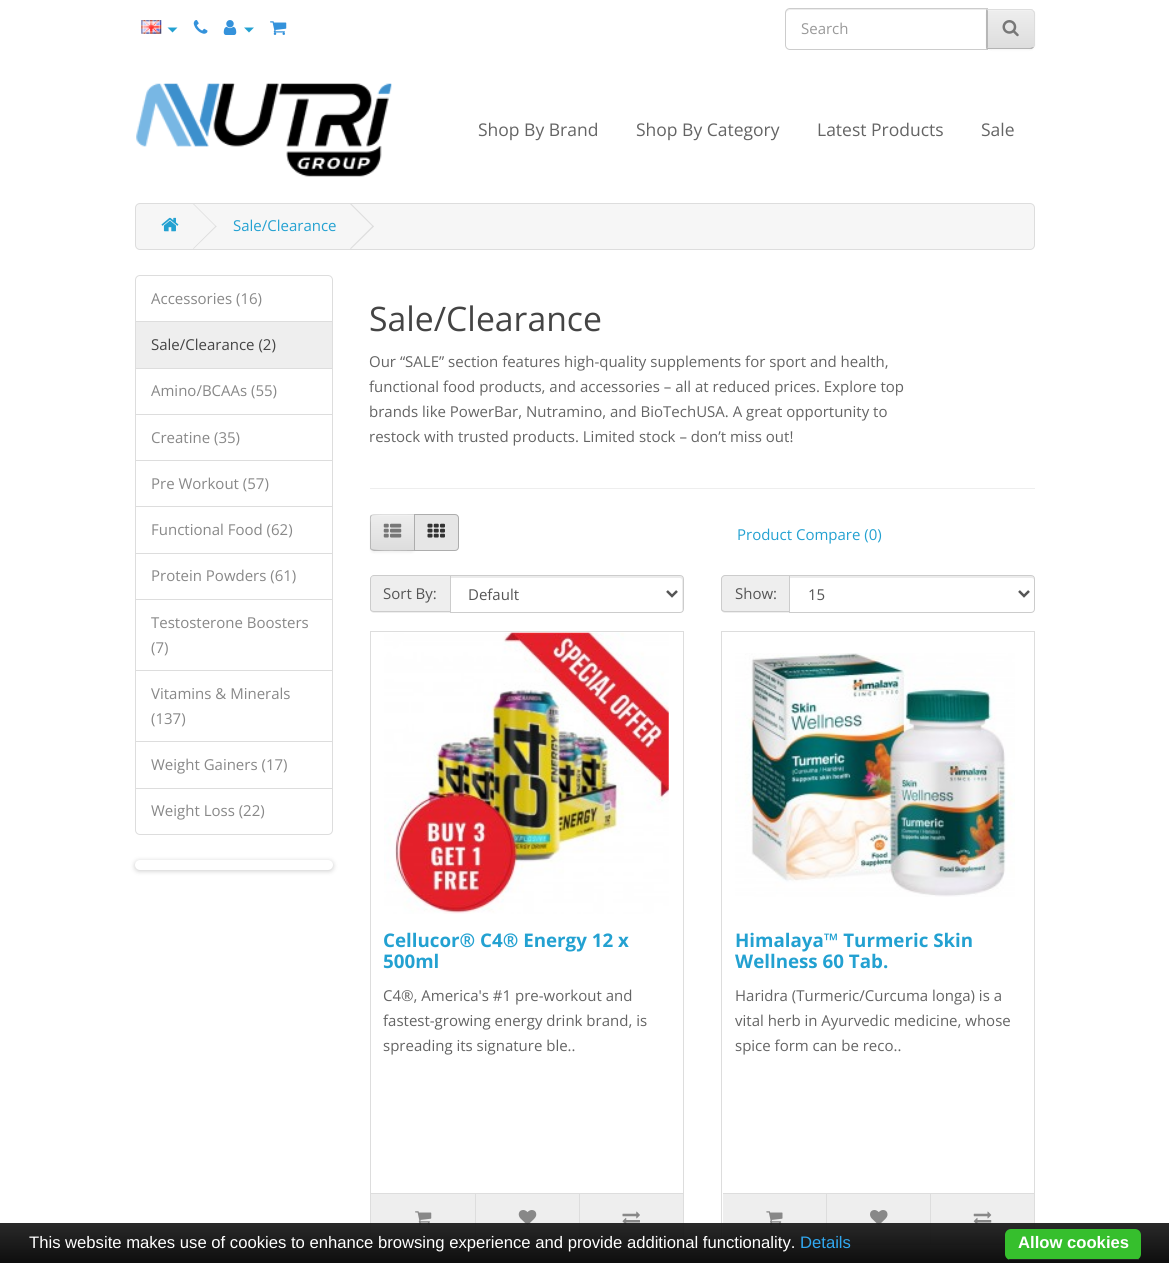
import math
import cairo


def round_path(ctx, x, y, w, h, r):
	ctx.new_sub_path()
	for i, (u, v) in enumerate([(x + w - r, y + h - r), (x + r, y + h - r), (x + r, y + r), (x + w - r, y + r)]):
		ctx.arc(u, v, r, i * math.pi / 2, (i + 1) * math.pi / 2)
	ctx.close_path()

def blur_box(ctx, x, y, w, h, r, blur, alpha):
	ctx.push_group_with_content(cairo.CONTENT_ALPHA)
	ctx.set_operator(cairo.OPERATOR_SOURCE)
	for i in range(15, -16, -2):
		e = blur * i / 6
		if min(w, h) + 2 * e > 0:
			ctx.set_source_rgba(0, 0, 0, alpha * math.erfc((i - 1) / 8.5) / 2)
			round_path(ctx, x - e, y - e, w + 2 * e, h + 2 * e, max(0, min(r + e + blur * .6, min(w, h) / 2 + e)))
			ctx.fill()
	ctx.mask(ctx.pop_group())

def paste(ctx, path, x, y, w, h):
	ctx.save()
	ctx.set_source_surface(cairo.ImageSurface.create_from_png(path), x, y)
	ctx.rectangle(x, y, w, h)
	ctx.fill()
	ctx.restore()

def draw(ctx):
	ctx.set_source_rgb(1, 1, 1)
	ctx.paint()
	paste(ctx, 'media/1.png', 141, 20, 21, 14)
	ctx.set_source_rgb(0.137, 0.631, 0.82)
	ctx.new_path()
	ctx.move_to(167.5, 27.5)
	ctx.line_to(177.5, 27.5)
	ctx.line_to(172.5, 32.5)
	ctx.close_path()
	ctx.fill()
	paste(ctx, 'media/2.png', 193, 20, 15, 14)
	paste(ctx, 'media/3.png', 223, 20, 14, 15)
	ctx.new_path()
	ctx.move_to(244, 27.5)
	ctx.line_to(254, 27.5)
	ctx.line_to(249, 32.5)
	ctx.close_path()
	ctx.fill()
	paste(ctx, 'media/4.png', 270, 21, 17, 14)
	ctx.set_source_rgb(0.925, 0.925, 0.925)
	ctx.new_path()
	ctx.move_to(790, 10)
	ctx.line_to(986, 10)
	ctx.line_to(986, 9)
	ctx.line_to(790, 9)
	ctx.curve_to(787, 9, 786, 11, 786, 14)
	ctx.curve_to(786, 12, 788, 10, 790, 10)
	ctx.close_path()
	ctx.fill()
	ctx.new_path()
	ctx.move_to(790, 8.5)
	ctx.line_to(987.5, 8.5)
	ctx.line_to(987.5, 49.5)
	ctx.line_to(790, 49.5)
	ctx.curve_to(787.5, 49.5, 785.5, 47.5, 785.5, 45)
	ctx.line_to(785.5, 13)
	ctx.curve_to(785.5, 10.5, 787.5, 8.5, 790, 8.5)
	ctx.close_path()
	ctx.set_source_rgb(0.8, 0.8, 0.8)
	ctx.set_line_width(1)
	ctx.stroke()
	ctx.select_font_face('Open Sans')
	ctx.set_font_size(15)
	ctx.set_source_rgb(0.6, 0.6, 0.6)
	ctx.move_to(801, 34)
	ctx.show_text('Search')
	ctx.set_source_rgb(0, 0, 0)
	blur_box(ctx, 986, 10, 49, 40, 5, 1, 0.05)
	ctx.save()
	ctx.new_path()
	ctx.move_to(986, 9)
	ctx.line_to(1030, 9)
	ctx.curve_to(1033, 9, 1035, 11, 1035, 14)
	ctx.line_to(1035, 44)
	ctx.curve_to(1035, 47, 1033, 49, 1030, 49)
	ctx.line_to(986, 49)
	ctx.close_path()
	ctx.clip()
	gradient = cairo.LinearGradient(1011, 10, 1011, 48)
	gradient.add_color_stop_rgba(0, 0.933, 0.933, 0.933, 1)
	gradient.add_color_stop_rgba(1, 0.867, 0.867, 0.867, 1)
	ctx.set_source(gradient)
	ctx.rectangle(987, 10, 48, 38)
	ctx.fill()
	ctx.restore()
	ctx.set_source_rgb(0.945, 0.945, 0.945)
	ctx.new_path()
	ctx.move_to(988, 11)
	ctx.line_to(1030, 11)
	ctx.curve_to(1032, 11, 1034, 13, 1034, 15)
	ctx.line_to(1034, 14)
	ctx.curve_to(1034, 12, 1032, 10, 1030, 10)
	ctx.line_to(988, 10)
	ctx.close_path()
	ctx.fill()
	ctx.set_source_rgb(0.867, 0.867, 0.867)
	ctx.new_path()
	ctx.move_to(988, 10)
	ctx.line_to(1030, 10)
	ctx.curve_to(1031, 10, 1032, 10, 1033, 11)
	ctx.line_to(1033, 10)
	ctx.curve_to(1033, 9, 1031, 9, 1030, 9)
	ctx.line_to(986, 9)
	ctx.close_path()
	ctx.fill()
	ctx.new_path()
	ctx.move_to(1033.5, 10.5)
	ctx.curve_to(1034.5, 11, 1035, 12.5, 1035, 14)
	ctx.line_to(1035, 44)
	ctx.curve_to(1035, 45.5, 1034.5, 46.5, 1033.5, 47.5)
	ctx.line_to(1033, 46.5)
	ctx.curve_to(1033.5, 46, 1034, 45, 1034, 44)
	ctx.line_to(1034, 14)
	ctx.curve_to(1034, 13, 1033.5, 12, 1032.5, 11)
	ctx.close_path()
	ctx.fill()
	ctx.set_source_rgb(0.702, 0.702, 0.702)
	ctx.new_path()
	ctx.move_to(1034, 47)
	ctx.line_to(1032, 49)
	ctx.line_to(986, 49)
	ctx.line_to(988, 47)
	ctx.line_to(988, 48)
	ctx.line_to(1030, 48)
	ctx.curve_to(1031, 48, 1032, 47, 1033, 47)
	ctx.close_path()
	ctx.fill()
	ctx.set_source_rgb(0.718, 0.718, 0.718)
	ctx.new_path()
	ctx.move_to(986, 49)
	ctx.line_to(988, 47)
	ctx.line_to(988, 10.5)
	ctx.line_to(986, 9)
	ctx.close_path()
	ctx.fill()
	paste(ctx, 'media/5.png', 1002, 20, 17, 17)
	paste(ctx, 'media/6.png', 136, 83, 256, 94)
	ctx.set_font_size(17.5)
	ctx.set_source_rgb(0.392, 0.392, 0.392)
	for x, y, s in [
		(478, 136, 'Shop By Brand'),
		(636, 136, 'Shop By Category'),
		(817, 136, 'Latest Products'),
		(981, 136, 'Sale'),
	]:
		ctx.move_to(x, y)
		ctx.show_text(s)
	ctx.set_source_rgb(0.961, 0.961, 0.961)
	round_path(ctx, 135.5, 203.5, 899, 46, 4.5)
	ctx.fill_preserve()
	ctx.set_source_rgb(0.867, 0.867, 0.867)
	ctx.stroke()
	paste(ctx, 'media/7.png', 161, 217, 18, 15)
	ctx.new_path()
	ctx.move_to(193, 204)
	ctx.line_to(193.5, 203.5)
	ctx.line_to(216.5, 226.5)
	ctx.line_to(216, 227)
	ctx.close_path()
	ctx.fill()
	ctx.new_path()
	ctx.move_to(193, 248.5)
	ctx.line_to(216, 225.5)
	ctx.line_to(216.5, 226.5)
	ctx.line_to(193.5, 249)
	ctx.close_path()
	ctx.fill()
	ctx.set_font_size(15)
	ctx.set_source_rgb(0.137, 0.631, 0.82)
	ctx.move_to(233, 231)
	ctx.show_text('Sale/Clearance')
	ctx.set_source_rgb(0.867, 0.867, 0.867)
	ctx.new_path()
	ctx.move_to(350, 204)
	ctx.line_to(351, 203.5)
	ctx.line_to(374, 226.5)
	ctx.line_to(373, 227)
	ctx.close_path()
	ctx.fill()
	ctx.new_path()
	ctx.move_to(350, 248.5)
	ctx.line_to(373, 225.5)
	ctx.line_to(374, 226.5)
	ctx.line_to(351, 249)
	ctx.close_path()
	ctx.fill()
	ctx.new_path()
	ctx.move_to(140, 275.5)
	ctx.line_to(328, 275.5)
	ctx.curve_to(330.5, 275.5, 332.5, 277.5, 332.5, 280)
	ctx.line_to(332.5, 322.5)
	ctx.line_to(135.5, 322.5)
	ctx.line_to(135.5, 280)
	ctx.curve_to(135.5, 277.5, 137.5, 275.5, 140, 275.5)
	ctx.close_path()
	ctx.stroke()
	ctx.set_source_rgb(0.533, 0.533, 0.533)
	ctx.move_to(151, 304)
	ctx.show_text('Accessories (16)')
	ctx.rectangle(135.5, 368.5, 197, 46)
	ctx.set_source_rgb(0.867, 0.867, 0.867)
	ctx.stroke()
	ctx.set_source_rgb(0.933, 0.933, 0.933)
	ctx.rectangle(135.5, 321.5, 197, 47)
	ctx.fill_preserve()
	ctx.set_source_rgb(0.867, 0.867, 0.867)
	ctx.stroke()
	ctx.set_source_rgb(0.267, 0.267, 0.267)
	ctx.move_to(151, 350)
	ctx.show_text('Sale/Clearance (2)')
	ctx.set_source_rgb(0.533, 0.533, 0.533)
	ctx.move_to(151, 396)
	ctx.show_text('Amino/BCAAs (55)')
	ctx.rectangle(135.5, 414.5, 197, 46)
	ctx.set_source_rgb(0.867, 0.867, 0.867)
	ctx.stroke()
	ctx.set_source_rgb(0.533, 0.533, 0.533)
	ctx.move_to(151, 443)
	ctx.show_text('Creatine (35)')
	ctx.rectangle(135.5, 460.5, 197, 47)
	ctx.set_source_rgb(0.867, 0.867, 0.867)
	ctx.stroke()
	ctx.set_source_rgb(0.533, 0.533, 0.533)
	ctx.move_to(151, 489)
	ctx.show_text('Pre Workout (57)')
	ctx.set_source_rgb(1, 1, 1)
	ctx.rectangle(136, 507, 196, 1)
	ctx.fill()
	ctx.rectangle(135.5, 506.5, 197, 47)
	ctx.set_source_rgb(0.867, 0.867, 0.867)
	ctx.stroke()
	ctx.set_source_rgb(0.533, 0.533, 0.533)
	ctx.move_to(151, 535)
	ctx.show_text('Functional Food (62)')
	ctx.rectangle(135.5, 553.5, 197, 46)
	ctx.set_source_rgb(0.867, 0.867, 0.867)
	ctx.stroke()
	ctx.set_source_rgb(0.533, 0.533, 0.533)
	ctx.move_to(151, 581)
	ctx.show_text('Protein Powders (61)')
	ctx.rectangle(135.5, 599.5, 197, 71)
	ctx.set_source_rgb(0.867, 0.867, 0.867)
	ctx.stroke()
	ctx.set_source_rgb(0.533, 0.533, 0.533)
	ctx.move_to(151, 628)
	ctx.show_text('Testosterone Boosters')
	ctx.move_to(151, 653)
	ctx.show_text('(7)')
	ctx.rectangle(135.5, 670.5, 197, 72)
	ctx.set_source_rgb(0.867, 0.867, 0.867)
	ctx.stroke()
	ctx.set_source_rgb(0.533, 0.533, 0.533)
	ctx.move_to(151, 699)
	ctx.show_text('Vitamins & Minerals')
	ctx.move_to(151, 724)
	ctx.show_text('(137)')
	ctx.set_source_rgb(1, 1, 1)
	ctx.rectangle(136, 742, 196, 1)
	ctx.fill()
	ctx.rectangle(135.5, 741.5, 197, 47)
	ctx.set_source_rgb(0.867, 0.867, 0.867)
	ctx.stroke()
	ctx.set_source_rgb(0.533, 0.533, 0.533)
	ctx.move_to(151, 770)
	ctx.show_text('Weight Gainers (17)')
	ctx.set_source_rgb(1, 1, 1)
	ctx.new_path()
	ctx.move_to(135.5, 788.5)
	ctx.line_to(332.5, 788.5)
	ctx.line_to(332.5, 830)
	ctx.curve_to(332.5, 832.5, 330.5, 834.5, 328, 834.5)
	ctx.line_to(140, 834.5)
	ctx.curve_to(137.5, 834.5, 135.5, 832.5, 135.5, 830)
	ctx.close_path()
	ctx.fill_preserve()
	ctx.set_source_rgb(0.867, 0.867, 0.867)
	ctx.stroke()
	ctx.set_source_rgb(0.533, 0.533, 0.533)
	ctx.move_to(151, 816)
	ctx.show_text('Weight Loss (22)')
	ctx.set_source_rgb(0, 0, 0)
	blur_box(ctx, 135, 861, 198, 10, 5, 2.5, 0.2)
	ctx.set_source_rgb(1, 1, 1)
	round_path(ctx, 135, 860, 198, 10, 5)
	ctx.fill()
	ctx.set_font_size(33.75)
	ctx.set_source_rgb(0.267, 0.267, 0.267)
	ctx.move_to(369, 331)
	ctx.show_text('Sale/Clearance')
	ctx.set_font_size(15)
	ctx.set_source_rgb(0.392, 0.392, 0.392)
	for x, y, s in [
		(369, 367, 'Our “SALE” section features high-quality supplements for sport and health,'),
		(369, 392, 'functional food products, and accessories – all at reduced prices. Explore top'),
		(369, 417, 'brands like PowerBar, Nutramino, and BioTechUSA. A great opportunity to'),
		(369, 442, 'restock with trusted products. Limited stock – don’t miss out!'),
	]:
		ctx.move_to(x, y)
		ctx.show_text(s)
	ctx.set_source_rgb(0.933, 0.933, 0.933)
	ctx.rectangle(370, 488, 665, 1)
	ctx.fill()
	ctx.set_source_rgb(0, 0, 0)
	blur_box(ctx, 370, 515, 45, 38, 4, 1, 0.05)
	ctx.set_source_rgb(0.906, 0.906, 0.906)
	ctx.new_path()
	ctx.move_to(374, 514)
	ctx.line_to(415, 514)
	ctx.line_to(415, 551)
	ctx.line_to(374, 551)
	ctx.curve_to(372, 551, 370, 549, 370, 547)
	ctx.line_to(370, 518)
	ctx.curve_to(370, 516, 372, 514, 374, 514)
	ctx.close_path()
	ctx.fill()
	ctx.save()
	ctx.new_path()
	ctx.move_to(374, 514)
	ctx.line_to(415, 514)
	ctx.line_to(415, 551)
	ctx.line_to(374, 551)
	ctx.curve_to(372, 551, 370, 549, 370, 547)
	ctx.line_to(370, 518)
	ctx.curve_to(370, 516, 372, 514, 374, 514)
	ctx.close_path()
	ctx.clip()
	gradient = cairo.LinearGradient(393, 515, 393, 550)
	gradient.add_color_stop_rgba(0, 0.933, 0.933, 0.933, 1)
	gradient.add_color_stop_rgba(1, 0.867, 0.867, 0.867, 1)
	ctx.set_source(gradient)
	ctx.rectangle(370, 515, 44, 35)
	ctx.fill()
	ctx.restore()
	ctx.set_source_rgb(0.945, 0.945, 0.945)
	ctx.new_path()
	ctx.move_to(374, 516)
	ctx.line_to(414, 516)
	ctx.line_to(414, 515)
	ctx.line_to(374, 515)
	ctx.curve_to(372, 515, 371, 516, 371, 518)
	ctx.line_to(371, 519)
	ctx.curve_to(371, 517, 372, 516, 374, 516)
	ctx.close_path()
	ctx.fill()
	ctx.set_source_rgb(0.867, 0.867, 0.867)
	ctx.new_path()
	ctx.move_to(374, 514)
	ctx.line_to(371, 515)
	ctx.line_to(372, 516)
	ctx.curve_to(374, 514, 409, 515, 414, 515)
	ctx.line_to(415, 514)
	ctx.close_path()
	ctx.fill()
	ctx.set_source_rgb(0.702, 0.702, 0.702)
	ctx.new_path()
	ctx.move_to(415, 551)
	ctx.line_to(374, 551)
	ctx.line_to(371, 550)
	ctx.line_to(372, 549)
	ctx.curve_to(374, 551, 408, 550, 414, 550)
	ctx.close_path()
	ctx.fill()
	ctx.set_source_rgb(0.718, 0.718, 0.718)
	ctx.new_path()
	ctx.move_to(370, 518)
	ctx.line_to(370, 548.5)
	ctx.line_to(371, 550)
	ctx.line_to(372, 549.5)
	ctx.line_to(371, 548)
	ctx.line_to(371, 523)
	ctx.curve_to(371, 522, 370, 517, 372, 515.5)
	ctx.line_to(371, 515)
	ctx.curve_to(370.5, 515.5, 370, 516.5, 370, 518)
	ctx.close_path()
	ctx.fill()
	paste(ctx, 'media/8.png', 383, 523, 19, 15)
	ctx.set_source_rgb(0.902, 0.902, 0.902)
	ctx.new_path()
	ctx.move_to(414.5, 514.5)
	ctx.line_to(455, 514.5)
	ctx.curve_to(457, 514.5, 458.5, 516, 458.5, 518)
	ctx.line_to(458.5, 547)
	ctx.curve_to(458.5, 549, 457, 550.5, 455, 550.5)
	ctx.line_to(414.5, 550.5)
	ctx.close_path()
	ctx.fill_preserve()
	ctx.set_source_rgb(0.678, 0.678, 0.678)
	ctx.stroke()
	paste(ctx, 'media/9.png', 427, 523, 18, 15)
	ctx.set_source_rgb(0.137, 0.631, 0.82)
	ctx.move_to(737, 540)
	ctx.show_text('Product Compare (0)')
	ctx.set_source_rgb(0.933, 0.933, 0.933)
	ctx.new_path()
	ctx.move_to(374, 575)
	ctx.line_to(450, 575)
	ctx.line_to(450, 613)
	ctx.line_to(374, 613)
	ctx.curve_to(372, 613, 370, 611, 370, 609)
	ctx.line_to(370, 579)
	ctx.curve_to(370, 577, 372, 575, 374, 575)
	ctx.close_path()
	ctx.fill()
	ctx.set_source_rgb(0.8, 0.8, 0.8)
	ctx.set_fill_rule(cairo.FILL_RULE_EVEN_ODD)
	ctx.new_path()
	ctx.move_to(374, 575)
	ctx.line_to(450, 575)
	ctx.line_to(450, 612)
	ctx.line_to(374, 612)
	ctx.curve_to(372, 612, 370, 611, 370, 609)
	ctx.line_to(370, 579)
	ctx.curve_to(370, 577, 372, 575, 374, 575)
	ctx.close_path()
	ctx.move_to(374, 576)
	ctx.line_to(450, 576)
	ctx.line_to(450, 611)
	ctx.line_to(374, 611)
	ctx.curve_to(372, 611, 371, 610, 371, 609)
	ctx.line_to(371, 579)
	ctx.curve_to(371, 577, 372, 576, 374, 576)
	ctx.close_path()
	ctx.fill()
	ctx.set_source_rgb(0.333, 0.333, 0.333)
	ctx.move_to(383, 599)
	ctx.show_text('Sort By:')
	ctx.set_source_rgb(0.925, 0.925, 0.925)
	ctx.set_fill_rule(cairo.FILL_RULE_WINDING)
	ctx.new_path()
	ctx.move_to(451, 578)
	ctx.line_to(680, 578)
	ctx.curve_to(681, 578, 682, 579, 682, 580)
	ctx.line_to(682, 611)
	ctx.curve_to(683, 610, 683, 609, 683, 608)
	ctx.line_to(683, 578)
	ctx.curve_to(683, 577, 682, 576, 680, 576)
	ctx.line_to(451, 576)
	ctx.close_path()
	ctx.fill()
	ctx.new_path()
	ctx.move_to(450.5, 575.5)
	ctx.line_to(680, 575.5)
	ctx.curve_to(682, 575.5, 683.5, 577, 683.5, 579)
	ctx.line_to(683.5, 609)
	ctx.curve_to(683.5, 611, 682, 612.5, 680, 612.5)
	ctx.line_to(450.5, 612.5)
	ctx.close_path()
	ctx.set_source_rgb(0.8, 0.8, 0.8)
	ctx.stroke()
	ctx.new_path()
	ctx.move_to(667, 591)
	ctx.line_to(672, 596)
	ctx.line_to(677, 591)
	ctx.set_source_rgb(0.333, 0.333, 0.333)
	ctx.set_line_width(2.5)
	ctx.stroke()
	ctx.move_to(468, 600)
	ctx.show_text('Default')
	ctx.set_source_rgb(0.933, 0.933, 0.933)
	ctx.new_path()
	ctx.move_to(725, 575)
	ctx.line_to(789, 575)
	ctx.line_to(789, 613)
	ctx.line_to(725, 613)
	ctx.curve_to(723, 613, 721, 611, 721, 609)
	ctx.line_to(721, 579)
	ctx.curve_to(721, 577, 723, 575, 725, 575)
	ctx.close_path()
	ctx.fill()
	ctx.set_source_rgb(0.8, 0.8, 0.8)
	ctx.set_fill_rule(cairo.FILL_RULE_EVEN_ODD)
	ctx.new_path()
	ctx.move_to(725, 575)
	ctx.line_to(789, 575)
	ctx.line_to(789, 612)
	ctx.line_to(725, 612)
	ctx.curve_to(723, 612, 721, 611, 721, 609)
	ctx.line_to(721, 579)
	ctx.curve_to(721, 577, 723, 575, 725, 575)
	ctx.close_path()
	ctx.move_to(725, 576)
	ctx.line_to(789, 576)
	ctx.line_to(789, 611)
	ctx.line_to(725, 611)
	ctx.curve_to(724, 611, 722, 610, 722, 609)
	ctx.line_to(722, 579)
	ctx.curve_to(722, 577, 724, 576, 725, 576)
	ctx.close_path()
	ctx.fill()
	ctx.set_source_rgb(0.333, 0.333, 0.333)
	ctx.move_to(735, 599)
	ctx.show_text('Show:')
	ctx.set_source_rgb(0.925, 0.925, 0.925)
	ctx.set_fill_rule(cairo.FILL_RULE_WINDING)
	ctx.new_path()
	ctx.move_to(790, 578)
	ctx.line_to(1031, 578)
	ctx.curve_to(1033, 578, 1034, 579, 1034, 580)
	ctx.curve_to(1034, 579, 1034, 577, 1032, 576)
	ctx.line_to(790, 576)
	ctx.close_path()
	ctx.fill()
	ctx.new_path()
	ctx.move_to(789.5, 575.5)
	ctx.line_to(1031, 575.5)
	ctx.curve_to(1033, 575.5, 1034.5, 577, 1034.5, 579)
	ctx.line_to(1034.5, 609)
	ctx.curve_to(1034.5, 611, 1033, 612.5, 1031, 612.5)
	ctx.line_to(789.5, 612.5)
	ctx.close_path()
	ctx.set_source_rgb(0.8, 0.8, 0.8)
	ctx.set_line_width(1)
	ctx.stroke()
	ctx.new_path()
	ctx.move_to(1019, 591)
	ctx.line_to(1024, 596)
	ctx.line_to(1029, 591)
	ctx.set_source_rgb(0.333, 0.333, 0.333)
	ctx.set_line_width(2.5)
	ctx.stroke()
	ctx.move_to(808, 600)
	ctx.show_text('15')
	ctx.rectangle(370.5, 631.5, 313, 613)
	ctx.set_source_rgb(0.867, 0.867, 0.867)
	ctx.set_line_width(1)
	ctx.stroke()
	paste(ctx, 'media/10.png', 384, 632, 285, 282)
	ctx.select_font_face('Open Sans', cairo.FONT_SLANT_NORMAL, cairo.FONT_WEIGHT_BOLD)
	ctx.set_font_size(18.75)
	ctx.set_source_rgb(0.137, 0.631, 0.82)
	ctx.move_to(383, 947)
	ctx.show_text('Cellucor® C4® Energy 12 x')
	ctx.move_to(383, 968)
	ctx.show_text('500ml')
	ctx.select_font_face('Open Sans')
	ctx.set_font_size(15)
	ctx.set_source_rgb(0.392, 0.392, 0.392)
	for x, y, s in [
		(383, 1001, 'C4®, America\'s #1 pre-workout and'),
		(383, 1026, 'fastest-growing energy drink brand, is'),
		(383, 1051, 'spreading its signature ble..'),
	]:
		ctx.move_to(x, y)
		ctx.show_text(s)
	ctx.set_source_rgb(0.933, 0.933, 0.933)
	ctx.rectangle(371, 1194, 312, 50)
	ctx.fill()
	ctx.set_source_rgb(0.867, 0.867, 0.867)
	ctx.rectangle(371, 1193, 312, 1)
	ctx.fill()
	paste(ctx, 'media/11.png', 415, 1211, 17, 14)
	ctx.rectangle(475, 1194, 1, 50)
	ctx.fill()
	paste(ctx, 'media/12.png', 518, 1210, 19, 15)
	ctx.rectangle(579, 1194, 1, 50)
	ctx.fill()
	paste(ctx, 'media/13.png', 622, 1211, 18, 14)
	ctx.rectangle(721.5, 631.5, 313, 613)
	ctx.stroke()
	paste(ctx, 'media/14.png', 735, 653, 280, 244)
	ctx.select_font_face('Open Sans', cairo.FONT_SLANT_NORMAL, cairo.FONT_WEIGHT_BOLD)
	ctx.set_font_size(18.75)
	ctx.set_source_rgb(0.137, 0.631, 0.82)
	ctx.move_to(735, 947)
	ctx.show_text('Himalaya™ Turmeric Skin')
	ctx.move_to(735, 968)
	ctx.show_text('Wellness 60 Tab.')
	ctx.select_font_face('Open Sans')
	ctx.set_font_size(15)
	ctx.set_source_rgb(0.392, 0.392, 0.392)
	for x, y, s in [
		(735, 1001, 'Haridra (Turmeric/Curcuma longa) is a'),
		(735, 1026, 'vital herb in Ayurvedic medicine, whose'),
		(735, 1051, 'spice form can be reco..'),
	]:
		ctx.move_to(x, y)
		ctx.show_text(s)
	ctx.set_source_rgb(0.933, 0.933, 0.933)
	ctx.rectangle(723, 1194, 311, 50)
	ctx.fill()
	ctx.set_source_rgb(0.867, 0.867, 0.867)
	ctx.rectangle(723, 1193, 311, 1)
	ctx.fill()
	paste(ctx, 'media/15.png', 766, 1211, 17, 14)
	ctx.rectangle(826, 1194, 1, 50)
	ctx.fill()
	paste(ctx, 'media/16.png', 870, 1210, 18, 15)
	ctx.rectangle(930, 1194, 1, 50)
	ctx.fill()
	paste(ctx, 'media/17.png', 973, 1211, 19, 14)
	gradient = cairo.LinearGradient(585, 1223, 585, 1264)
	gradient.add_color_stop_rgba(0, 0.118, 0.118, 0.118, 0.95)
	gradient.add_color_stop_rgba(1, 0, 0, 0, 0.95)
	ctx.set_source(gradient)
	ctx.rectangle(0, 1223, 1169, 40)
	ctx.fill()
	ctx.select_font_face('Liberation Sans')
	ctx.set_font_size(16.65)
	ctx.set_source_rgb(1, 1, 1)
	ctx.move_to(29, 1248)
	ctx.show_text('This website makes use of cookies to enhance browsing experience and provide additional functionality.')
	ctx.set_source_rgb(0.192, 0.659, 0.941)
	ctx.move_to(800, 1248)
	ctx.show_text('Details')
	ctx.set_source_rgb(0.212, 0.749, 0.176)
	round_path(ctx, 1005, 1229, 136, 31, 6)
	ctx.fill()
	ctx.set_source_rgb(0.133, 0.133, 0.133)
	ctx.rectangle(1009, 1259, 130, 1)
	ctx.fill()
	ctx.select_font_face('Liberation Sans', cairo.FONT_SLANT_NORMAL, cairo.FONT_WEIGHT_BOLD)
	ctx.set_source_rgb(1, 1, 1)
	ctx.move_to(1018, 1248)
	ctx.show_text('Allow cookies')


surface = cairo.ImageSurface(cairo.FORMAT_RGB24, 1169, 1263)
ctx = cairo.Context(surface)
options = cairo.FontOptions()
options.set_hint_metrics(cairo.HINT_METRICS_OFF)
options.set_hint_style(cairo.HINT_STYLE_NONE)
ctx.set_font_options(options)
ctx.set_miter_limit(4)
draw(ctx)
surface.write_to_png('image.png')
